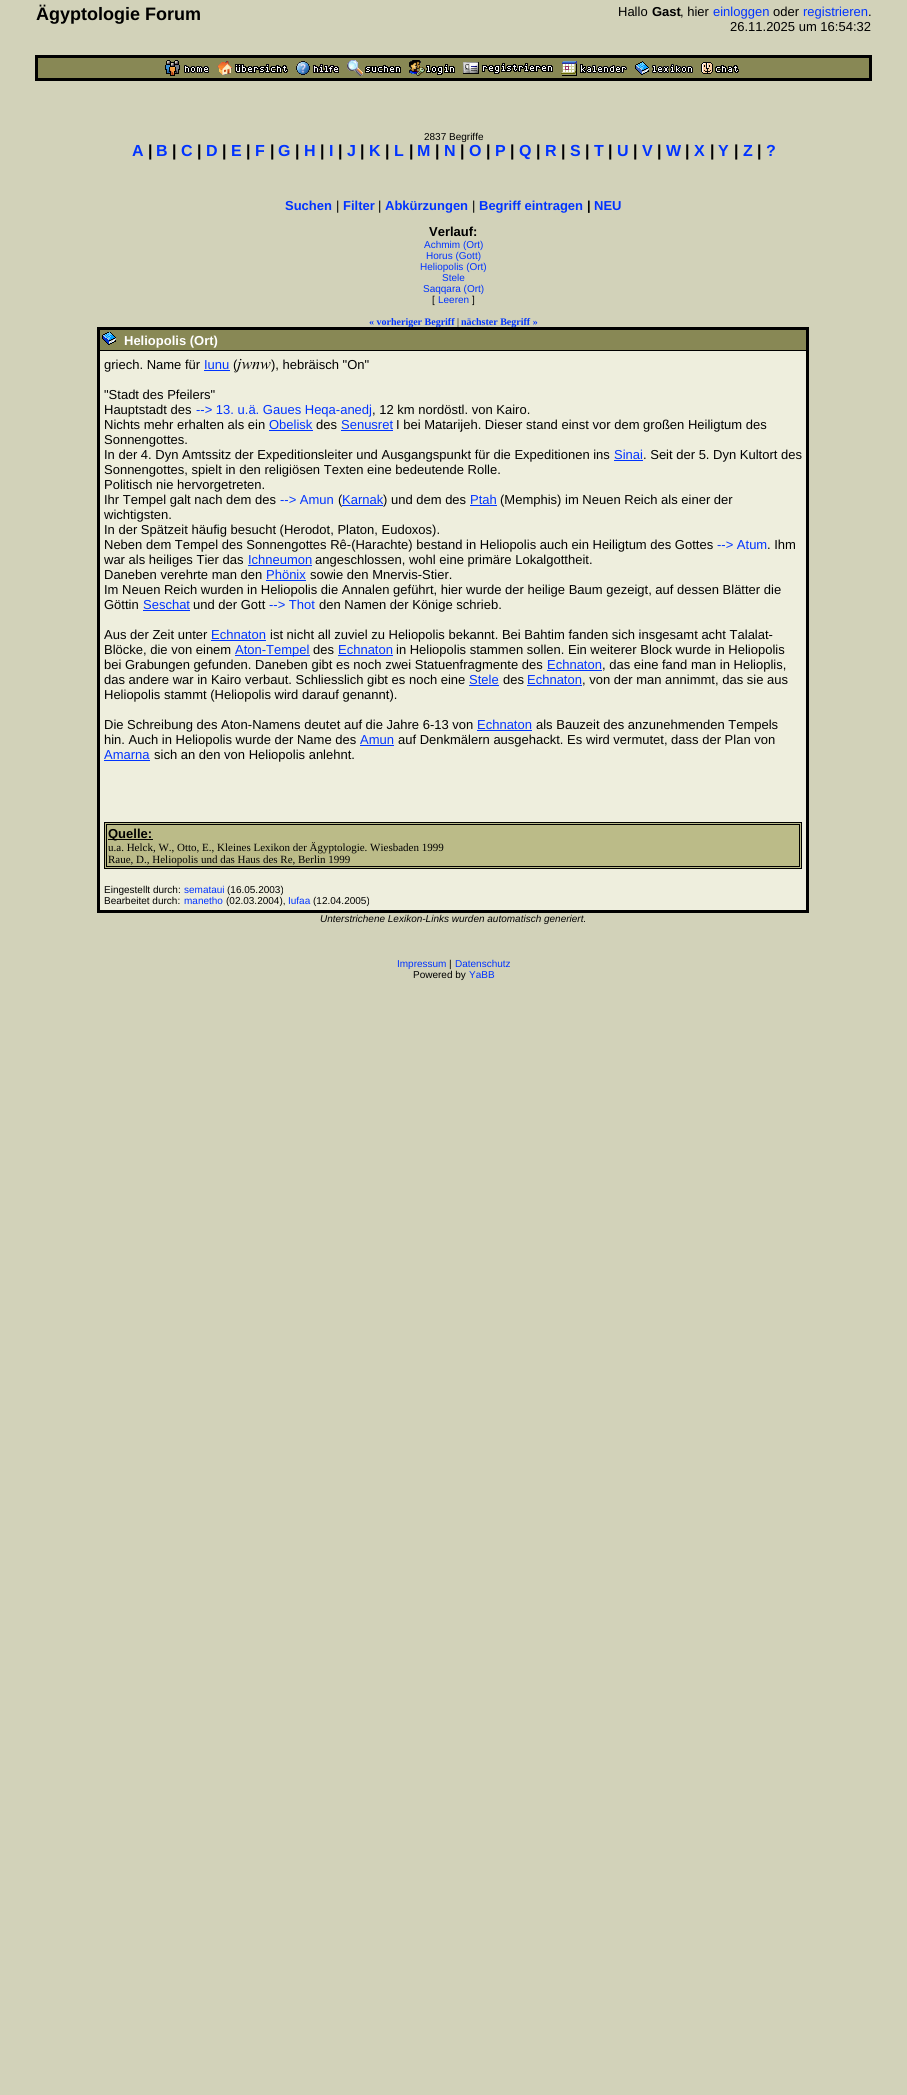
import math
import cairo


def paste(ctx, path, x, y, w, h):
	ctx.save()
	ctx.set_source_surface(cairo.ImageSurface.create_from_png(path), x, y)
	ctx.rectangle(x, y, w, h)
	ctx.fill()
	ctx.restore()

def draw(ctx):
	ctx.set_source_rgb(0.824, 0.824, 0.725)
	ctx.paint()
	ctx.select_font_face('Liberation Sans', cairo.FONT_SLANT_NORMAL, cairo.FONT_WEIGHT_BOLD)
	ctx.set_font_size(18)
	ctx.set_source_rgb(0, 0, 0)
	ctx.move_to(36, 20)
	ctx.show_text('Ägyptologie Forum')
	ctx.select_font_face('Liberation Sans')
	ctx.set_font_size(13)
	ctx.move_to(618, 16)
	ctx.show_text('Hallo')
	ctx.select_font_face('Liberation Sans', cairo.FONT_SLANT_NORMAL, cairo.FONT_WEIGHT_BOLD)
	ctx.move_to(652, 16)
	ctx.show_text('Gast')
	ctx.select_font_face('Liberation Sans')
	ctx.move_to(680, 16)
	ctx.show_text(', hier')
	ctx.set_source_rgb(0, 0.2, 1)
	ctx.move_to(713, 16)
	ctx.show_text('einloggen')
	ctx.set_source_rgb(0, 0, 0)
	ctx.move_to(773, 16)
	ctx.show_text('oder')
	ctx.set_source_rgb(0, 0.2, 1)
	ctx.move_to(803, 16)
	ctx.show_text('registrieren')
	ctx.set_source_rgb(0, 0, 0)
	ctx.move_to(868, 16)
	ctx.show_text('.')
	ctx.move_to(730, 31)
	ctx.show_text('26.11.2025 um 16:54:32')
	ctx.rectangle(35, 55, 837, 26)
	ctx.fill()
	ctx.set_source_rgb(0.533, 0.533, 0.333)
	ctx.rectangle(38, 58, 831, 20)
	ctx.fill()
	paste(ctx, 'media/1.png', 165, 60, 44, 16)
	paste(ctx, 'media/2.png', 217, 61, 71, 14)
	paste(ctx, 'media/3.png', 296, 61, 43, 14)
	paste(ctx, 'media/4.png', 347, 60, 54, 16)
	paste(ctx, 'media/5.png', 409, 60, 46, 16)
	paste(ctx, 'media/6.png', 463, 62, 90, 12)
	paste(ctx, 'media/7.png', 561, 61, 66, 15)
	paste(ctx, 'media/8.png', 635, 61, 58, 14)
	paste(ctx, 'media/9.png', 701, 62, 38, 12)
	ctx.set_font_size(10)
	ctx.set_source_rgb(0, 0, 0)
	ctx.move_to(424, 140)
	ctx.show_text('2837 Begriffe')
	ctx.select_font_face('Liberation Sans', cairo.FONT_SLANT_NORMAL, cairo.FONT_WEIGHT_BOLD)
	ctx.set_font_size(16)
	ctx.set_source_rgb(0, 0.2, 1)
	ctx.move_to(132, 156)
	ctx.show_text('A')
	ctx.set_source_rgb(0, 0, 0)
	ctx.move_to(148, 156)
	ctx.show_text('|')
	ctx.set_source_rgb(0, 0.2, 1)
	ctx.move_to(156, 156)
	ctx.show_text('B')
	ctx.set_source_rgb(0, 0, 0)
	ctx.move_to(172, 156)
	ctx.show_text('|')
	ctx.set_source_rgb(0, 0.2, 1)
	ctx.move_to(181, 156)
	ctx.show_text('C')
	ctx.set_source_rgb(0, 0, 0)
	ctx.move_to(197, 156)
	ctx.show_text('|')
	ctx.set_source_rgb(0, 0.2, 1)
	ctx.move_to(206, 156)
	ctx.show_text('D')
	ctx.set_source_rgb(0, 0, 0)
	ctx.move_to(222, 156)
	ctx.show_text('|')
	ctx.set_source_rgb(0, 0.2, 1)
	ctx.move_to(231, 156)
	ctx.show_text('E')
	ctx.set_source_rgb(0, 0, 0)
	ctx.move_to(246, 156)
	ctx.show_text('|')
	ctx.set_source_rgb(0, 0.2, 1)
	ctx.move_to(255, 156)
	ctx.show_text('F')
	ctx.set_source_rgb(0, 0, 0)
	ctx.move_to(270, 156)
	ctx.show_text('|')
	ctx.set_source_rgb(0, 0.2, 1)
	ctx.move_to(278, 156)
	ctx.show_text('G')
	ctx.set_source_rgb(0, 0, 0)
	ctx.move_to(295, 156)
	ctx.show_text('|')
	ctx.set_source_rgb(0, 0.2, 1)
	ctx.move_to(304, 156)
	ctx.show_text('H')
	ctx.set_source_rgb(0, 0, 0)
	ctx.move_to(320, 156)
	ctx.show_text('|')
	ctx.set_source_rgb(0, 0.2, 1)
	ctx.move_to(329, 156)
	ctx.show_text('I')
	ctx.set_source_rgb(0, 0, 0)
	ctx.move_to(338, 156)
	ctx.show_text('|')
	ctx.set_source_rgb(0, 0.2, 1)
	ctx.move_to(347, 156)
	ctx.show_text('J')
	ctx.set_source_rgb(0, 0, 0)
	ctx.move_to(360, 156)
	ctx.show_text('|')
	ctx.set_source_rgb(0, 0.2, 1)
	ctx.move_to(369, 156)
	ctx.show_text('K')
	ctx.set_source_rgb(0, 0, 0)
	ctx.move_to(385, 156)
	ctx.show_text('|')
	ctx.set_source_rgb(0, 0.2, 1)
	ctx.move_to(394, 156)
	ctx.show_text('L')
	ctx.set_source_rgb(0, 0, 0)
	ctx.move_to(409, 156)
	ctx.show_text('|')
	ctx.set_source_rgb(0, 0.2, 1)
	ctx.move_to(417, 156)
	ctx.show_text('M')
	ctx.set_source_rgb(0, 0, 0)
	ctx.move_to(435, 156)
	ctx.show_text('|')
	ctx.set_source_rgb(0, 0.2, 1)
	ctx.move_to(444, 156)
	ctx.show_text('N')
	ctx.set_source_rgb(0, 0, 0)
	ctx.move_to(460, 156)
	ctx.show_text('|')
	ctx.set_source_rgb(0, 0.2, 1)
	ctx.move_to(469, 156)
	ctx.show_text('O')
	ctx.set_source_rgb(0, 0, 0)
	ctx.move_to(486, 156)
	ctx.show_text('|')
	ctx.set_source_rgb(0, 0.2, 1)
	ctx.move_to(495, 156)
	ctx.show_text('P')
	ctx.set_source_rgb(0, 0, 0)
	ctx.move_to(510, 156)
	ctx.show_text('|')
	ctx.set_source_rgb(0, 0.2, 1)
	ctx.move_to(519, 156)
	ctx.show_text('Q')
	ctx.set_source_rgb(0, 0, 0)
	ctx.move_to(536, 156)
	ctx.show_text('|')
	ctx.set_source_rgb(0, 0.2, 1)
	ctx.move_to(545, 156)
	ctx.show_text('R')
	ctx.set_source_rgb(0, 0, 0)
	ctx.move_to(561, 156)
	ctx.show_text('|')
	ctx.set_source_rgb(0, 0.2, 1)
	ctx.move_to(570, 156)
	ctx.show_text('S')
	ctx.set_source_rgb(0, 0, 0)
	ctx.move_to(585, 156)
	ctx.show_text('|')
	ctx.set_source_rgb(0, 0.2, 1)
	ctx.move_to(594, 156)
	ctx.show_text('T')
	ctx.set_source_rgb(0, 0, 0)
	ctx.move_to(608, 156)
	ctx.show_text('|')
	ctx.set_source_rgb(0, 0.2, 1)
	ctx.move_to(617, 156)
	ctx.show_text('U')
	ctx.set_source_rgb(0, 0, 0)
	ctx.move_to(633, 156)
	ctx.show_text('|')
	ctx.set_source_rgb(0, 0.2, 1)
	ctx.move_to(642, 156)
	ctx.show_text('V')
	ctx.set_source_rgb(0, 0, 0)
	ctx.move_to(657, 156)
	ctx.show_text('|')
	ctx.set_source_rgb(0, 0.2, 1)
	ctx.move_to(666, 156)
	ctx.show_text('W')
	ctx.set_source_rgb(0, 0, 0)
	ctx.move_to(685, 156)
	ctx.show_text('|')
	ctx.set_source_rgb(0, 0.2, 1)
	ctx.move_to(694, 156)
	ctx.show_text('X')
	ctx.set_source_rgb(0, 0, 0)
	ctx.move_to(710, 156)
	ctx.show_text('|')
	ctx.set_source_rgb(0, 0.2, 1)
	ctx.move_to(718, 156)
	ctx.show_text('Y')
	ctx.set_source_rgb(0, 0, 0)
	ctx.move_to(734, 156)
	ctx.show_text('|')
	ctx.set_source_rgb(0, 0.2, 1)
	ctx.move_to(743, 156)
	ctx.show_text('Z')
	ctx.set_source_rgb(0, 0, 0)
	ctx.move_to(757, 156)
	ctx.show_text('|')
	ctx.set_source_rgb(0, 0.2, 1)
	ctx.move_to(766, 156)
	ctx.show_text('?')
	ctx.set_font_size(13)
	ctx.move_to(285, 210)
	ctx.show_text('Suchen')
	ctx.select_font_face('Liberation Sans')
	ctx.set_source_rgb(0, 0, 0)
	ctx.move_to(336, 210)
	ctx.show_text('|')
	ctx.select_font_face('Liberation Sans', cairo.FONT_SLANT_NORMAL, cairo.FONT_WEIGHT_BOLD)
	ctx.set_source_rgb(0, 0.2, 1)
	ctx.move_to(343, 210)
	ctx.show_text('Filter')
	ctx.select_font_face('Liberation Sans')
	ctx.set_source_rgb(0, 0, 0)
	ctx.move_to(378, 210)
	ctx.show_text('|')
	ctx.select_font_face('Liberation Sans', cairo.FONT_SLANT_NORMAL, cairo.FONT_WEIGHT_BOLD)
	ctx.set_source_rgb(0, 0.2, 1)
	ctx.move_to(385, 210)
	ctx.show_text('Abkürzungen')
	ctx.select_font_face('Liberation Sans')
	ctx.set_source_rgb(0, 0, 0)
	ctx.move_to(472, 210)
	ctx.show_text('|')
	ctx.select_font_face('Liberation Sans', cairo.FONT_SLANT_NORMAL, cairo.FONT_WEIGHT_BOLD)
	ctx.set_source_rgb(0, 0.2, 1)
	ctx.move_to(479, 210)
	ctx.show_text('Begriff eintragen')
	ctx.set_source_rgb(0, 0, 0)
	ctx.move_to(587, 210)
	ctx.show_text('|')
	ctx.set_source_rgb(0, 0.2, 1)
	ctx.move_to(594, 210)
	ctx.show_text('NEU')
	ctx.set_source_rgb(0, 0, 0)
	ctx.move_to(429, 236)
	ctx.show_text('Verlauf:')
	ctx.select_font_face('Liberation Sans')
	ctx.set_font_size(10)
	ctx.set_source_rgb(0, 0.2, 1)
	for x, y, s in [
		(424, 248, 'Achmim (Ort)'),
		(426, 259, 'Horus (Gott)'),
		(420, 270, 'Heliopolis (Ort)'),
		(442, 281, 'Stele'),
		(423, 292, 'Saqqara (Ort)'),
	]:
		ctx.move_to(x, y)
		ctx.show_text(s)
	ctx.set_source_rgb(0, 0, 0)
	ctx.move_to(432, 303)
	ctx.show_text('[')
	ctx.set_source_rgb(0, 0.2, 1)
	ctx.move_to(438, 303)
	ctx.show_text('Leeren')
	ctx.set_source_rgb(0, 0, 0)
	ctx.move_to(472, 303)
	ctx.show_text(']')
	ctx.rectangle(97, 327, 712, 586)
	ctx.fill()
	ctx.select_font_face('Liberation Serif', cairo.FONT_SLANT_NORMAL, cairo.FONT_WEIGHT_BOLD)
	ctx.set_source_rgb(0, 0.2, 1)
	ctx.move_to(369, 325)
	ctx.show_text('« vorheriger Begriff')
	ctx.select_font_face('Liberation Serif')
	ctx.set_source_rgb(0, 0, 0)
	ctx.move_to(457, 325)
	ctx.show_text('|')
	ctx.select_font_face('Liberation Serif', cairo.FONT_SLANT_NORMAL, cairo.FONT_WEIGHT_BOLD)
	ctx.set_source_rgb(0, 0.2, 1)
	ctx.move_to(461, 325)
	ctx.show_text('nächster Begriff »')
	ctx.set_source_rgb(0.533, 0.533, 0.333)
	ctx.rectangle(100, 330, 706, 20)
	ctx.fill()
	paste(ctx, 'media/10.png', 102, 332, 14, 13)
	ctx.select_font_face('Liberation Sans', cairo.FONT_SLANT_NORMAL, cairo.FONT_WEIGHT_BOLD)
	ctx.set_font_size(13)
	ctx.set_source_rgb(1, 1, 1)
	ctx.move_to(124, 345)
	ctx.show_text('Heliopolis (Ort)')
	ctx.set_source_rgb(0.933, 0.933, 0.867)
	ctx.rectangle(100, 351, 706, 559)
	ctx.fill()
	ctx.select_font_face('Liberation Sans')
	ctx.set_source_rgb(0, 0, 0)
	ctx.move_to(104, 369)
	ctx.show_text('griech. Name für')
	ctx.move_to(233, 369)
	ctx.show_text('(')
	ctx.select_font_face('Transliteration', cairo.FONT_SLANT_ITALIC)
	ctx.set_font_size(16)
	ctx.move_to(237, 369)
	ctx.show_text('jwnw')
	ctx.select_font_face('Liberation Sans')
	ctx.set_font_size(13)
	ctx.set_source_rgb(0, 0.2, 1)
	ctx.move_to(204, 369)
	ctx.show_text('Iunu')
	ctx.rectangle(204, 370, 26, 1)
	ctx.fill()
	ctx.set_source_rgb(0, 0, 0)
	for x, y, s in [
		(271, 369, '), hebräisch "On"'),
		(104, 399, '"Stadt des Pfeilers"'),
		(104, 414, 'Hauptstadt des'),
	]:
		ctx.move_to(x, y)
		ctx.show_text(s)
	ctx.set_source_rgb(0, 0.2, 1)
	ctx.move_to(196, 414)
	ctx.show_text('--> 13. u.ä. Gaues Heqa-anedj')
	ctx.set_source_rgb(0, 0, 0)
	ctx.move_to(372, 414)
	ctx.show_text(', 12 km nordöstl. von Kairo.')
	ctx.move_to(104, 429)
	ctx.show_text('Nichts mehr erhalten als ein')
	ctx.set_source_rgb(0, 0.2, 1)
	ctx.move_to(269, 429)
	ctx.show_text('Obelisk')
	ctx.rectangle(269, 430, 44, 1)
	ctx.fill()
	ctx.set_source_rgb(0, 0, 0)
	ctx.move_to(316, 429)
	ctx.show_text('des')
	ctx.set_source_rgb(0, 0.2, 1)
	ctx.move_to(341, 429)
	ctx.show_text('Senusret')
	ctx.rectangle(341, 430, 52, 1)
	ctx.fill()
	ctx.set_source_rgb(0, 0, 0)
	for x, y, s in [
		(396, 429, 'I bei Matarijeh. Dieser stand einst vor dem großen Heiligtum des'),
		(104, 444, 'Sonnengottes.'),
		(104, 459, 'In der 4. Dyn Amtssitz der Expeditionsleiter und Ausgangspunkt für die Expeditionen ins'),
	]:
		ctx.move_to(x, y)
		ctx.show_text(s)
	ctx.set_source_rgb(0, 0.2, 1)
	ctx.move_to(614, 459)
	ctx.show_text('Sinai')
	ctx.set_source_rgb(0, 0, 0)
	ctx.move_to(643, 459)
	ctx.show_text('. Seit der 5. Dyn Kultort des')
	ctx.set_source_rgb(0, 0.2, 1)
	ctx.rectangle(614, 460, 29, 1)
	ctx.fill()
	ctx.set_source_rgb(0, 0, 0)
	for x, y, s in [
		(104, 474, 'Sonnengottes, spielt in den religiösen Texten eine bedeutende Rolle.'),
		(104, 489, 'Politisch nie hervorgetreten.'),
		(104, 504, 'Ihr Tempel galt nach dem des'),
	]:
		ctx.move_to(x, y)
		ctx.show_text(s)
	ctx.set_source_rgb(0, 0.2, 1)
	ctx.move_to(280, 504)
	ctx.show_text('--> Amun')
	ctx.set_source_rgb(0, 0, 0)
	ctx.move_to(338, 504)
	ctx.show_text('(')
	ctx.set_source_rgb(0, 0.2, 1)
	ctx.rectangle(342, 505, 41, 1)
	ctx.fill()
	ctx.move_to(342, 504)
	ctx.show_text('Karnak')
	ctx.set_source_rgb(0, 0, 0)
	ctx.move_to(383, 504)
	ctx.show_text(') und dem des')
	ctx.set_source_rgb(0, 0.2, 1)
	ctx.move_to(470, 504)
	ctx.show_text('Ptah')
	ctx.rectangle(470, 505, 27, 1)
	ctx.fill()
	ctx.set_source_rgb(0, 0, 0)
	for x, y, s in [
		(500, 504, '(Memphis) im Neuen Reich als einer der'),
		(104, 519, 'wichtigsten.'),
		(104, 534, 'In der Spätzeit häufig besucht (Herodot, Platon, Eudoxos).'),
		(104, 549, 'Neben dem Tempel des Sonnengottes Rê-(Harachte) bestand in Heliopolis auch ein Heiligtum des Gottes'),
	]:
		ctx.move_to(x, y)
		ctx.show_text(s)
	ctx.set_source_rgb(0, 0.2, 1)
	ctx.move_to(717, 549)
	ctx.show_text('--> Atum')
	ctx.set_source_rgb(0, 0, 0)
	ctx.move_to(767, 549)
	ctx.show_text('. Ihm')
	ctx.move_to(104, 564)
	ctx.show_text('war als heiliges Tier das')
	ctx.set_source_rgb(0, 0.2, 1)
	ctx.move_to(248, 564)
	ctx.show_text('Ichneumon')
	ctx.rectangle(248, 565, 64, 1)
	ctx.fill()
	ctx.set_source_rgb(0, 0, 0)
	ctx.move_to(315, 564)
	ctx.show_text('angeschlossen, wohl eine primäre Lokalgottheit.')
	ctx.move_to(104, 579)
	ctx.show_text('Daneben verehrte man den')
	ctx.set_source_rgb(0, 0.2, 1)
	ctx.move_to(266, 579)
	ctx.show_text('Phönix')
	ctx.rectangle(266, 580, 40, 1)
	ctx.fill()
	ctx.set_source_rgb(0, 0, 0)
	for x, y, s in [
		(310, 579, 'sowie den Mnervis-Stier.'),
		(104, 594, 'Im Neuen Reich wurden in Heliopolis die Annalen geführt, hier wurde der heilige Baum gezeigt, auf dessen Blätter die'),
		(104, 609, 'Göttin'),
	]:
		ctx.move_to(x, y)
		ctx.show_text(s)
	ctx.set_source_rgb(0, 0.2, 1)
	ctx.move_to(143, 609)
	ctx.show_text('Seschat')
	ctx.rectangle(143, 610, 47, 1)
	ctx.fill()
	ctx.set_source_rgb(0, 0, 0)
	ctx.move_to(193, 609)
	ctx.show_text('und der Gott')
	ctx.set_source_rgb(0, 0.2, 1)
	ctx.move_to(269, 609)
	ctx.show_text('--> Thot')
	ctx.set_source_rgb(0, 0, 0)
	ctx.move_to(319, 609)
	ctx.show_text('den Namen der Könige schrieb.')
	ctx.move_to(104, 639)
	ctx.show_text('Aus der Zeit unter')
	ctx.set_source_rgb(0, 0.2, 1)
	ctx.move_to(211, 639)
	ctx.show_text('Echnaton')
	ctx.rectangle(211, 640, 55, 1)
	ctx.fill()
	ctx.set_source_rgb(0, 0, 0)
	ctx.move_to(270, 639)
	ctx.show_text('ist nicht all zuviel zu Heliopolis bekannt. Bei Bahtim fanden sich insgesamt acht Talalat-')
	ctx.move_to(104, 654)
	ctx.show_text('Blöcke, die von einem')
	ctx.set_source_rgb(0, 0.2, 1)
	ctx.rectangle(235, 655, 75, 1)
	ctx.fill()
	ctx.move_to(235, 654)
	ctx.show_text('Aton-Tempel')
	ctx.set_source_rgb(0, 0, 0)
	ctx.move_to(313, 654)
	ctx.show_text('des')
	ctx.set_source_rgb(0, 0.2, 1)
	ctx.move_to(338, 654)
	ctx.show_text('Echnaton')
	ctx.rectangle(338, 655, 55, 1)
	ctx.fill()
	ctx.set_source_rgb(0, 0, 0)
	ctx.move_to(396, 654)
	ctx.show_text('in Heliopolis stammen sollen. Ein weiterer Block wurde in Heliopolis')
	ctx.move_to(104, 669)
	ctx.show_text('bei Grabungen gefunden. Daneben gibt es noch zwei Statuenfragmente des')
	ctx.set_source_rgb(0, 0.2, 1)
	ctx.move_to(547, 669)
	ctx.show_text('Echnaton')
	ctx.set_source_rgb(0, 0, 0)
	ctx.move_to(602, 669)
	ctx.show_text(', das eine fand man in Helioplis,')
	ctx.set_source_rgb(0, 0.2, 1)
	ctx.rectangle(547, 670, 55, 1)
	ctx.fill()
	ctx.set_source_rgb(0, 0, 0)
	ctx.move_to(104, 684)
	ctx.show_text('das andere war in Kairo verbaut. Schliesslich gibt es noch eine')
	ctx.set_source_rgb(0, 0.2, 1)
	ctx.move_to(469, 684)
	ctx.show_text('Stele')
	ctx.rectangle(469, 685, 30, 1)
	ctx.fill()
	ctx.set_source_rgb(0, 0, 0)
	ctx.move_to(503, 684)
	ctx.show_text('des')
	ctx.set_source_rgb(0, 0.2, 1)
	ctx.move_to(527, 684)
	ctx.show_text('Echnaton')
	ctx.rectangle(527, 685, 55, 1)
	ctx.fill()
	ctx.set_source_rgb(0, 0, 0)
	for x, y, s in [
		(582, 684, ', von der man annimmt, das sie aus'),
		(104, 699, 'Heliopolis stammt (Heliopolis wird darauf genannt).'),
		(104, 729, 'Die Schreibung des Aton-Namens deutet auf die Jahre 6-13 von'),
	]:
		ctx.move_to(x, y)
		ctx.show_text(s)
	ctx.set_source_rgb(0, 0.2, 1)
	ctx.move_to(477, 729)
	ctx.show_text('Echnaton')
	ctx.rectangle(477, 730, 55, 1)
	ctx.fill()
	ctx.set_source_rgb(0, 0, 0)
	ctx.move_to(536, 729)
	ctx.show_text('als Bauzeit des anzunehmenden Tempels')
	ctx.move_to(104, 744)
	ctx.show_text('hin. Auch in Heliopolis wurde der Name des')
	ctx.set_source_rgb(0, 0.2, 1)
	ctx.move_to(360, 744)
	ctx.show_text('Amun')
	ctx.rectangle(360, 745, 34, 1)
	ctx.fill()
	ctx.set_source_rgb(0, 0, 0)
	ctx.move_to(398, 744)
	ctx.show_text('auf Denkmälern ausgehackt. Es wird vermutet, dass der Plan von')
	ctx.set_source_rgb(0, 0.2, 1)
	ctx.move_to(104, 759)
	ctx.show_text('Amarna')
	ctx.rectangle(104, 760, 46, 1)
	ctx.fill()
	ctx.set_source_rgb(0, 0, 0)
	ctx.move_to(154, 759)
	ctx.show_text('sich an den von Heliopolis anlehnt.')
	ctx.set_source_rgb(0.733, 0.733, 0.533)
	ctx.rectangle(104.5, 822.5, 697, 46)
	ctx.fill_preserve()
	ctx.set_source_rgb(0, 0, 0)
	ctx.set_line_width(1)
	ctx.stroke()
	ctx.rectangle(106.5, 824.5, 693, 42)
	ctx.stroke()
	ctx.rectangle(108, 839, 45, 1)
	ctx.fill()
	ctx.select_font_face('Liberation Sans', cairo.FONT_SLANT_NORMAL, cairo.FONT_WEIGHT_BOLD)
	ctx.move_to(108, 838)
	ctx.show_text('Quelle:')
	ctx.select_font_face('Liberation Serif')
	ctx.set_font_size(11)
	ctx.move_to(108, 851)
	ctx.show_text('u.a. Helck, W., Otto, E., Kleines Lexikon der Ägyptologie. Wiesbaden 1999')
	ctx.move_to(108, 863)
	ctx.show_text('Raue, D., Heliopolis und das Haus des Re, Berlin 1999')
	ctx.select_font_face('Liberation Sans')
	ctx.set_font_size(10)
	ctx.move_to(104, 893)
	ctx.show_text('Eingestellt durch:')
	ctx.set_source_rgb(0, 0.2, 1)
	ctx.move_to(184, 893)
	ctx.show_text('semataui')
	ctx.set_source_rgb(0, 0, 0)
	ctx.move_to(227, 893)
	ctx.show_text('(16.05.2003)')
	ctx.move_to(104, 904)
	ctx.show_text('Bearbeitet durch:')
	ctx.set_source_rgb(0, 0.2, 1)
	ctx.move_to(184, 904)
	ctx.show_text('manetho')
	ctx.set_source_rgb(0, 0, 0)
	ctx.move_to(226, 904)
	ctx.show_text('(02.03.2004),')
	ctx.set_source_rgb(0, 0.2, 1)
	ctx.move_to(288, 904)
	ctx.show_text('Iufaa')
	ctx.set_source_rgb(0, 0, 0)
	ctx.move_to(313, 904)
	ctx.show_text('(12.04.2005)')
	ctx.select_font_face('Liberation Sans', cairo.FONT_SLANT_ITALIC)
	ctx.move_to(320, 922)
	ctx.show_text('Unterstrichene Lexikon-Links wurden automatisch generiert.')
	ctx.select_font_face('Liberation Sans')
	ctx.set_source_rgb(0, 0.2, 1)
	ctx.move_to(397, 967)
	ctx.show_text('Impressum')
	ctx.set_source_rgb(0, 0, 0)
	ctx.move_to(449, 967)
	ctx.show_text('|')
	ctx.set_source_rgb(0, 0.2, 1)
	ctx.move_to(455, 967)
	ctx.show_text('Datenschutz')
	ctx.set_source_rgb(0, 0, 0)
	ctx.move_to(413, 978)
	ctx.show_text('Powered by')
	ctx.set_source_rgb(0, 0.2, 1)
	ctx.move_to(469, 978)
	ctx.show_text('YaBB')


surface = cairo.ImageSurface(cairo.FORMAT_RGB24, 907, 2095)
ctx = cairo.Context(surface)
options = cairo.FontOptions()
options.set_hint_metrics(cairo.HINT_METRICS_OFF)
options.set_hint_style(cairo.HINT_STYLE_NONE)
ctx.set_font_options(options)
ctx.set_miter_limit(4)
draw(ctx)
surface.write_to_png('image.png')
